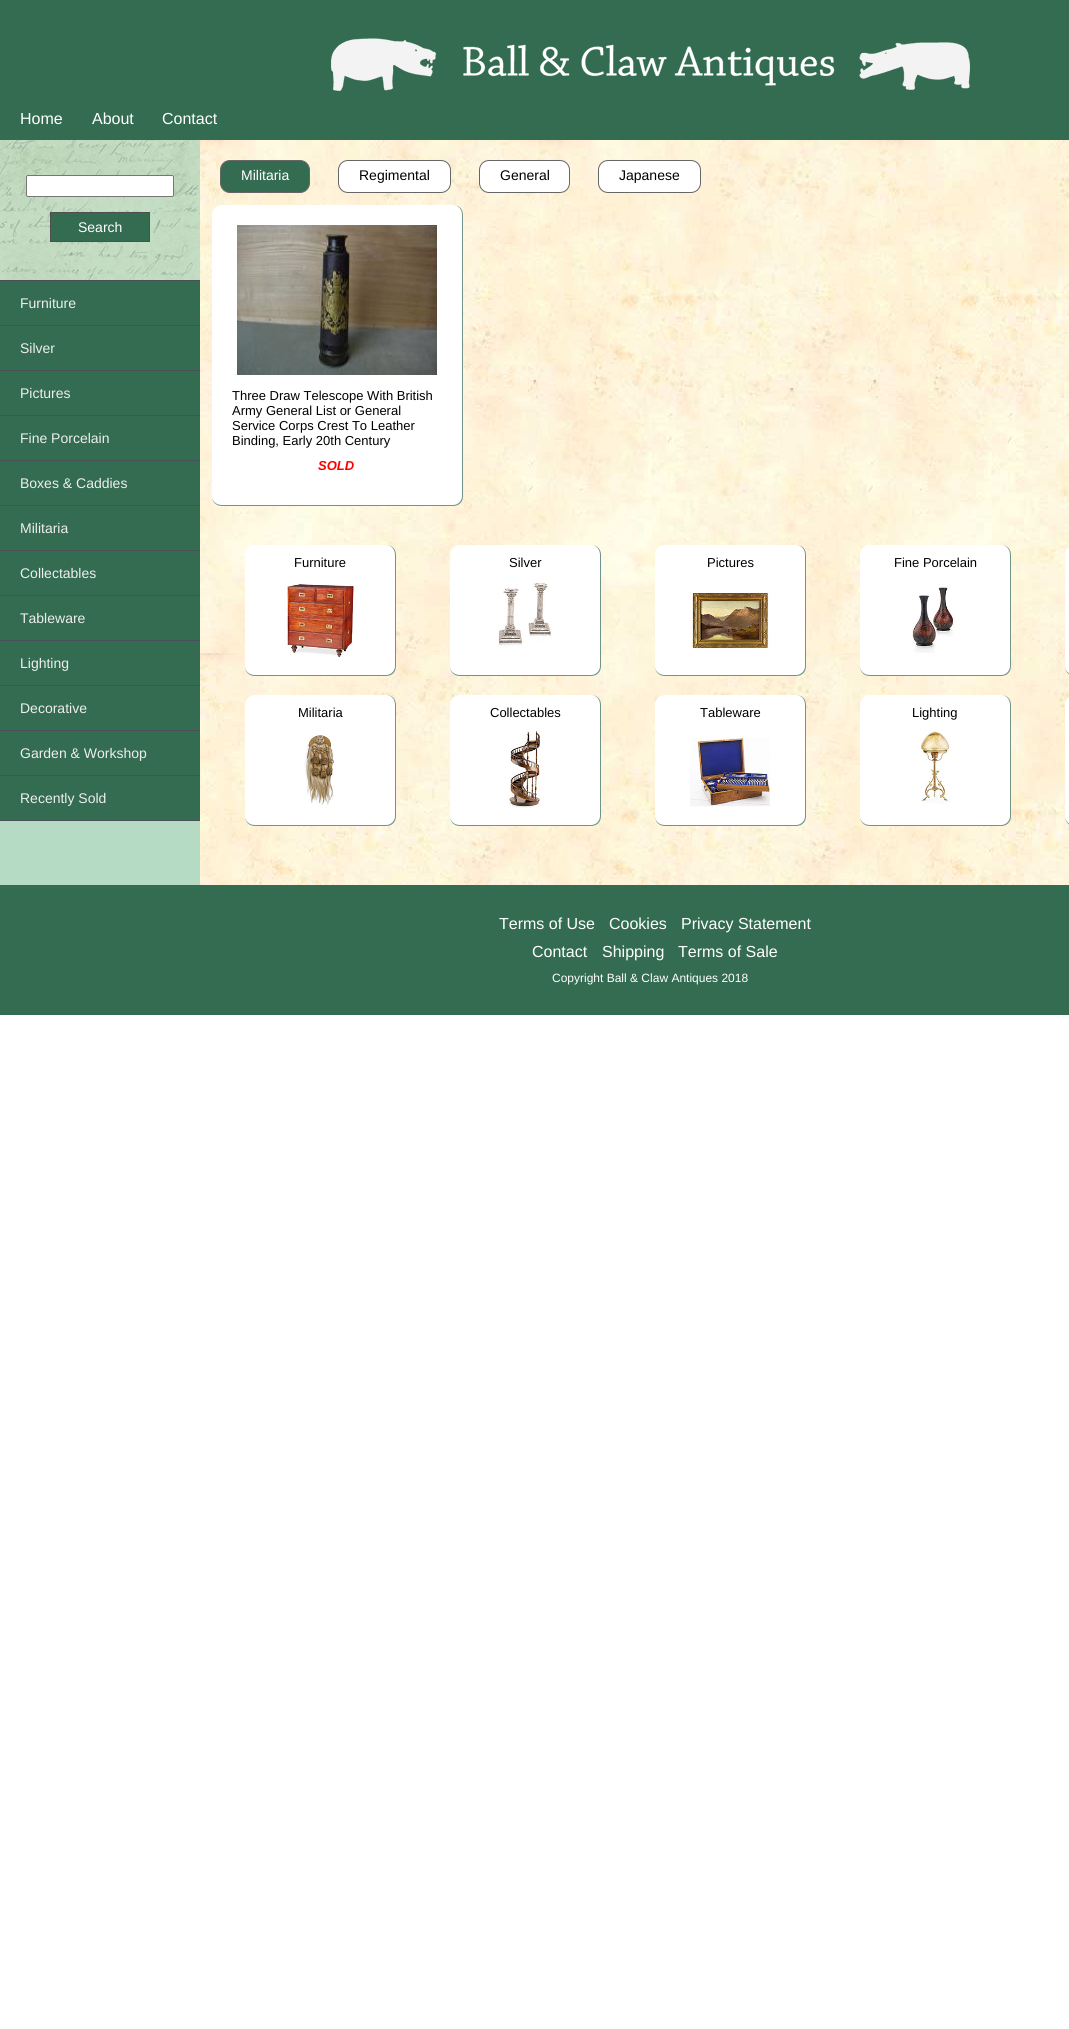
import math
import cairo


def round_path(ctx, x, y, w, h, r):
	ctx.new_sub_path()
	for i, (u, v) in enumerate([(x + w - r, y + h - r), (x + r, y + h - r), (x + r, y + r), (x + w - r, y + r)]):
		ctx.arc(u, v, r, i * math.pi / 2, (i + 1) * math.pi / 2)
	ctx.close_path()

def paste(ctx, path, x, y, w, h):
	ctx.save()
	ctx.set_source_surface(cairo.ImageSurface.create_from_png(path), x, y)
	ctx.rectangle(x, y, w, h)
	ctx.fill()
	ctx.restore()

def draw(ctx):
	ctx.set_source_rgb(1, 1, 1)
	ctx.paint()
	ctx.set_source_rgb(0.2, 0.424, 0.318)
	ctx.rectangle(0, 0, 1069, 140)
	ctx.fill()
	paste(ctx, 'media/1.png', 331, 38, 639, 53)
	ctx.select_font_face('Liberation Sans')
	ctx.set_font_size(16)
	ctx.set_source_rgb(1, 1, 1)
	for x, y, s in [
		(20, 124, 'Home'),
		(92, 124, 'About'),
		(162, 124, 'Contact'),
	]:
		ctx.move_to(x, y)
		ctx.show_text(s)
	ctx.set_source_rgb(0.71, 0.859, 0.769)
	ctx.rectangle(0, 140, 200, 745)
	ctx.fill()
	paste(ctx, 'media/2.png', 0, 140, 200, 140)
	ctx.set_source_rgb(1, 1, 1)
	round_path(ctx, 26.5, 175.5, 147, 21, 1.5)
	ctx.fill_preserve()
	ctx.set_source_rgb(0.463, 0.463, 0.463)
	ctx.set_line_width(1)
	ctx.stroke()
	ctx.set_source_rgb(0.2, 0.424, 0.318)
	ctx.rectangle(50.5, 212.5, 99, 29)
	ctx.fill_preserve()
	ctx.set_source_rgb(0.31, 0.31, 0.31)
	ctx.stroke()
	ctx.set_font_size(14)
	ctx.set_source_rgb(1, 1, 1)
	ctx.move_to(78, 232)
	ctx.show_text('Search')
	ctx.set_source_rgb(0.2, 0.424, 0.318)
	ctx.rectangle(0, 281, 200, 44)
	ctx.fill()
	ctx.set_source_rgb(0.286, 0.314, 0.353)
	ctx.rectangle(0, 280, 200, 1)
	ctx.fill()
	ctx.set_source_rgb(0.933, 0.933, 0.933)
	ctx.move_to(20, 308)
	ctx.show_text('Furniture')
	ctx.set_source_rgb(0.2, 0.424, 0.318)
	ctx.rectangle(0, 326, 200, 44)
	ctx.fill()
	ctx.set_source_rgb(0.286, 0.314, 0.353)
	ctx.rectangle(0, 325, 200, 1)
	ctx.fill()
	ctx.set_source_rgb(0.933, 0.933, 0.933)
	ctx.move_to(20, 353)
	ctx.show_text('Silver')
	ctx.set_source_rgb(0.2, 0.424, 0.318)
	ctx.rectangle(0, 371, 200, 44)
	ctx.fill()
	ctx.set_source_rgb(0.286, 0.314, 0.353)
	ctx.rectangle(0, 370, 200, 1)
	ctx.fill()
	ctx.set_source_rgb(0.933, 0.933, 0.933)
	ctx.move_to(20, 398)
	ctx.show_text('Pictures')
	ctx.set_source_rgb(0.2, 0.424, 0.318)
	ctx.rectangle(0, 416, 200, 44)
	ctx.fill()
	ctx.set_source_rgb(0.286, 0.314, 0.353)
	ctx.rectangle(0, 415, 200, 1)
	ctx.fill()
	ctx.set_source_rgb(0.933, 0.933, 0.933)
	ctx.move_to(20, 443)
	ctx.show_text('Fine Porcelain')
	ctx.set_source_rgb(0.2, 0.424, 0.318)
	ctx.rectangle(0, 461, 200, 44)
	ctx.fill()
	ctx.set_source_rgb(0.286, 0.314, 0.353)
	ctx.rectangle(0, 460, 200, 1)
	ctx.fill()
	ctx.set_source_rgb(0.933, 0.933, 0.933)
	ctx.move_to(20, 488)
	ctx.show_text('Boxes & Caddies')
	ctx.set_source_rgb(0.2, 0.424, 0.318)
	ctx.rectangle(0, 506, 200, 44)
	ctx.fill()
	ctx.set_source_rgb(0.286, 0.314, 0.353)
	ctx.rectangle(0, 505, 200, 1)
	ctx.fill()
	ctx.set_source_rgb(0.933, 0.933, 0.933)
	ctx.move_to(20, 533)
	ctx.show_text('Militaria')
	ctx.set_source_rgb(0.2, 0.424, 0.318)
	ctx.rectangle(0, 551, 200, 44)
	ctx.fill()
	ctx.set_source_rgb(0.286, 0.314, 0.353)
	ctx.rectangle(0, 550, 200, 1)
	ctx.fill()
	ctx.set_source_rgb(0.933, 0.933, 0.933)
	ctx.move_to(20, 578)
	ctx.show_text('Collectables')
	ctx.set_source_rgb(0.2, 0.424, 0.318)
	ctx.rectangle(0, 596, 200, 44)
	ctx.fill()
	ctx.set_source_rgb(0.286, 0.314, 0.353)
	ctx.rectangle(0, 595, 200, 1)
	ctx.fill()
	ctx.set_source_rgb(0.933, 0.933, 0.933)
	ctx.move_to(20, 623)
	ctx.show_text('Tableware')
	ctx.set_source_rgb(0.2, 0.424, 0.318)
	ctx.rectangle(0, 641, 200, 44)
	ctx.fill()
	ctx.set_source_rgb(0.286, 0.314, 0.353)
	ctx.rectangle(0, 640, 200, 1)
	ctx.fill()
	ctx.set_source_rgb(0.933, 0.933, 0.933)
	ctx.move_to(20, 668)
	ctx.show_text('Lighting')
	ctx.set_source_rgb(0.2, 0.424, 0.318)
	ctx.rectangle(0, 686, 200, 44)
	ctx.fill()
	ctx.set_source_rgb(0.286, 0.314, 0.353)
	ctx.rectangle(0, 685, 200, 1)
	ctx.fill()
	ctx.set_source_rgb(0.933, 0.933, 0.933)
	ctx.move_to(20, 713)
	ctx.show_text('Decorative')
	ctx.set_source_rgb(0.2, 0.424, 0.318)
	ctx.rectangle(0, 731, 200, 44)
	ctx.fill()
	ctx.set_source_rgb(0.286, 0.314, 0.353)
	ctx.rectangle(0, 730, 200, 1)
	ctx.fill()
	ctx.set_source_rgb(0.933, 0.933, 0.933)
	ctx.move_to(20, 758)
	ctx.show_text('Garden & Workshop')
	ctx.set_source_rgb(0.2, 0.424, 0.318)
	ctx.rectangle(0, 776, 200, 44)
	ctx.fill()
	ctx.set_source_rgb(0.286, 0.314, 0.353)
	ctx.rectangle(0, 775, 200, 1)
	ctx.rectangle(0, 820, 200, 1)
	ctx.fill()
	ctx.set_source_rgb(0.933, 0.933, 0.933)
	ctx.move_to(20, 803)
	ctx.show_text('Recently Sold')
	paste(ctx, 'media/3.png', 200, 140, 869, 745)
	ctx.set_source_rgb(0.2, 0.424, 0.318)
	round_path(ctx, 220.5, 160.5, 89, 32, 9.5)
	ctx.fill_preserve()
	ctx.set_source_rgb(0.4, 0.4, 0.4)
	ctx.stroke()
	ctx.set_source_rgb(1, 1, 1)
	ctx.move_to(241, 180)
	ctx.show_text('Militaria')
	round_path(ctx, 338.5, 160.5, 112, 32, 9.5)
	ctx.fill_preserve()
	ctx.set_source_rgb(0.4, 0.4, 0.4)
	ctx.stroke()
	ctx.set_source_rgb(0, 0, 0)
	ctx.move_to(359, 180)
	ctx.show_text('Regimental')
	ctx.set_source_rgb(1, 1, 1)
	round_path(ctx, 479.5, 160.5, 90, 32, 9.5)
	ctx.fill_preserve()
	ctx.set_source_rgb(0.4, 0.4, 0.4)
	ctx.stroke()
	ctx.set_source_rgb(0, 0, 0)
	ctx.move_to(500, 180)
	ctx.show_text('General')
	ctx.set_source_rgb(1, 1, 1)
	round_path(ctx, 598.5, 160.5, 102, 32, 9.5)
	ctx.fill_preserve()
	ctx.set_source_rgb(0.4, 0.4, 0.4)
	ctx.stroke()
	ctx.set_source_rgb(0, 0, 0)
	ctx.move_to(619, 180)
	ctx.show_text('Japanese')
	ctx.set_source_rgb(1, 1, 1)
	round_path(ctx, 212, 205, 251, 301, 10)
	ctx.fill()
	ctx.set_source_rgb(0.439, 0.58, 0.533)
	ctx.set_fill_rule(cairo.FILL_RULE_EVEN_ODD)
	ctx.new_path()
	ctx.move_to(222, 205)
	ctx.line_to(453, 205)
	ctx.curve_to(459, 205, 463, 209, 463, 215)
	ctx.line_to(463, 496)
	ctx.curve_to(463, 502, 459, 506, 453, 506)
	ctx.line_to(222, 506)
	ctx.curve_to(216, 506, 212, 502, 212, 496)
	ctx.line_to(212, 215)
	ctx.curve_to(212, 209, 216, 205, 222, 205)
	ctx.close_path()
	ctx.move_to(222, 205)
	ctx.line_to(453, 205)
	ctx.curve_to(458, 205, 462, 209, 462, 215)
	ctx.line_to(462, 496)
	ctx.curve_to(462, 501, 458, 505, 453, 505)
	ctx.line_to(222, 505)
	ctx.curve_to(216, 505, 212, 501, 212, 496)
	ctx.line_to(212, 215)
	ctx.curve_to(212, 209, 216, 205, 222, 205)
	ctx.close_path()
	ctx.fill()
	paste(ctx, 'media/4.png', 237, 225, 200, 150)
	ctx.set_font_size(13)
	ctx.set_source_rgb(0, 0, 0)
	for x, y, s in [
		(232, 400, 'Three Draw Telescope With British'),
		(232, 415, 'Army General List or General'),
		(232, 430, 'Service Corps Crest To Leather'),
		(232, 445, 'Binding, Early 20th Century'),
	]:
		ctx.move_to(x, y)
		ctx.show_text(s)
	ctx.select_font_face('Liberation Sans', cairo.FONT_SLANT_ITALIC, cairo.FONT_WEIGHT_BOLD)
	ctx.set_source_rgb(1, 0, 0)
	ctx.move_to(318, 470)
	ctx.show_text('SOLD')
	ctx.set_source_rgb(1, 1, 1)
	round_path(ctx, 245, 545, 151, 131, 10)
	ctx.fill()
	ctx.set_source_rgb(0.439, 0.58, 0.533)
	ctx.new_path()
	ctx.move_to(255, 545)
	ctx.line_to(386, 545)
	ctx.curve_to(392, 545, 396, 549, 396, 555)
	ctx.line_to(396, 666)
	ctx.curve_to(396, 672, 392, 676, 386, 676)
	ctx.line_to(255, 676)
	ctx.curve_to(249, 676, 245, 672, 245, 666)
	ctx.line_to(245, 555)
	ctx.curve_to(245, 549, 249, 545, 255, 545)
	ctx.close_path()
	ctx.move_to(255, 545)
	ctx.line_to(386, 545)
	ctx.curve_to(391, 545, 395, 549, 395, 555)
	ctx.line_to(395, 666)
	ctx.curve_to(395, 671, 391, 675, 386, 675)
	ctx.line_to(255, 675)
	ctx.curve_to(249, 675, 245, 671, 245, 666)
	ctx.line_to(245, 555)
	ctx.curve_to(245, 549, 249, 545, 255, 545)
	ctx.close_path()
	ctx.fill()
	ctx.select_font_face('Liberation Sans')
	ctx.set_source_rgb(0, 0, 0)
	ctx.move_to(294, 567)
	ctx.show_text('Furniture')
	paste(ctx, 'media/5.png', 284, 584, 73, 74)
	ctx.set_source_rgb(1, 1, 1)
	round_path(ctx, 450, 545, 151, 131, 10)
	ctx.fill()
	ctx.set_source_rgb(0.439, 0.58, 0.533)
	ctx.new_path()
	ctx.move_to(460, 545)
	ctx.line_to(591, 545)
	ctx.curve_to(597, 545, 601, 549, 601, 555)
	ctx.line_to(601, 666)
	ctx.curve_to(601, 672, 597, 676, 591, 676)
	ctx.line_to(460, 676)
	ctx.curve_to(454, 676, 450, 672, 450, 666)
	ctx.line_to(450, 555)
	ctx.curve_to(450, 549, 454, 545, 460, 545)
	ctx.close_path()
	ctx.move_to(460, 545)
	ctx.line_to(591, 545)
	ctx.curve_to(596, 545, 600, 549, 600, 555)
	ctx.line_to(600, 666)
	ctx.curve_to(600, 671, 596, 675, 591, 675)
	ctx.line_to(460, 675)
	ctx.curve_to(454, 675, 450, 671, 450, 666)
	ctx.line_to(450, 555)
	ctx.curve_to(450, 549, 454, 545, 460, 545)
	ctx.close_path()
	ctx.fill()
	ctx.set_source_rgb(0, 0, 0)
	ctx.move_to(509, 567)
	ctx.show_text('Silver')
	paste(ctx, 'media/6.png', 498, 580, 54, 68)
	ctx.set_source_rgb(1, 1, 1)
	round_path(ctx, 655, 545, 151, 131, 10)
	ctx.fill()
	ctx.set_source_rgb(0.439, 0.58, 0.533)
	ctx.new_path()
	ctx.move_to(665, 545)
	ctx.line_to(796, 545)
	ctx.curve_to(802, 545, 806, 549, 806, 555)
	ctx.line_to(806, 666)
	ctx.curve_to(806, 672, 802, 676, 796, 676)
	ctx.line_to(665, 676)
	ctx.curve_to(659, 676, 655, 672, 655, 666)
	ctx.line_to(655, 555)
	ctx.curve_to(655, 549, 659, 545, 665, 545)
	ctx.close_path()
	ctx.move_to(665, 545)
	ctx.line_to(796, 545)
	ctx.curve_to(801, 545, 805, 549, 805, 555)
	ctx.line_to(805, 666)
	ctx.curve_to(805, 671, 801, 675, 796, 675)
	ctx.line_to(665, 675)
	ctx.curve_to(659, 675, 655, 671, 655, 666)
	ctx.line_to(655, 555)
	ctx.curve_to(655, 549, 659, 545, 665, 545)
	ctx.close_path()
	ctx.fill()
	ctx.set_source_rgb(0, 0, 0)
	ctx.move_to(707, 567)
	ctx.show_text('Pictures')
	paste(ctx, 'media/7.png', 690, 593, 80, 56)
	ctx.set_source_rgb(1, 1, 1)
	round_path(ctx, 860, 545, 151, 131, 10)
	ctx.fill()
	ctx.set_source_rgb(0.439, 0.58, 0.533)
	ctx.new_path()
	ctx.move_to(870, 545)
	ctx.line_to(1001, 545)
	ctx.curve_to(1007, 545, 1011, 549, 1011, 555)
	ctx.line_to(1011, 666)
	ctx.curve_to(1011, 672, 1007, 676, 1001, 676)
	ctx.line_to(870, 676)
	ctx.curve_to(864, 676, 860, 672, 860, 666)
	ctx.line_to(860, 555)
	ctx.curve_to(860, 549, 864, 545, 870, 545)
	ctx.close_path()
	ctx.move_to(870, 545)
	ctx.line_to(1001, 545)
	ctx.curve_to(1006, 545, 1010, 549, 1010, 555)
	ctx.line_to(1010, 666)
	ctx.curve_to(1010, 671, 1006, 675, 1001, 675)
	ctx.line_to(870, 675)
	ctx.curve_to(864, 675, 860, 671, 860, 666)
	ctx.line_to(860, 555)
	ctx.curve_to(860, 549, 864, 545, 870, 545)
	ctx.close_path()
	ctx.fill()
	ctx.set_source_rgb(0, 0, 0)
	ctx.move_to(894, 567)
	ctx.show_text('Fine Porcelain')
	paste(ctx, 'media/8.png', 912, 587, 43, 66)
	ctx.set_source_rgb(1, 1, 1)
	round_path(ctx, 1065, 545, 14, 131, 10)
	ctx.fill()
	ctx.set_source_rgb(0.439, 0.58, 0.533)
	ctx.new_path()
	ctx.move_to(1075, 545)
	ctx.line_to(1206, 545)
	ctx.curve_to(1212, 545, 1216, 549, 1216, 555)
	ctx.line_to(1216, 666)
	ctx.curve_to(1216, 672, 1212, 676, 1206, 676)
	ctx.line_to(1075, 676)
	ctx.curve_to(1069, 676, 1065, 672, 1065, 666)
	ctx.line_to(1065, 555)
	ctx.curve_to(1065, 549, 1069, 545, 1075, 545)
	ctx.close_path()
	ctx.move_to(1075, 545)
	ctx.line_to(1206, 545)
	ctx.curve_to(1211, 545, 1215, 549, 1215, 555)
	ctx.line_to(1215, 666)
	ctx.curve_to(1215, 671, 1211, 675, 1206, 675)
	ctx.line_to(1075, 675)
	ctx.curve_to(1069, 675, 1065, 671, 1065, 666)
	ctx.line_to(1065, 555)
	ctx.curve_to(1065, 549, 1069, 545, 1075, 545)
	ctx.close_path()
	ctx.fill()
	ctx.set_source_rgb(1, 1, 1)
	round_path(ctx, 245, 695, 151, 131, 10)
	ctx.fill()
	ctx.set_source_rgb(0.439, 0.58, 0.533)
	ctx.new_path()
	ctx.move_to(255, 695)
	ctx.line_to(386, 695)
	ctx.curve_to(392, 695, 396, 699, 396, 705)
	ctx.line_to(396, 816)
	ctx.curve_to(396, 822, 392, 826, 386, 826)
	ctx.line_to(255, 826)
	ctx.curve_to(249, 826, 245, 822, 245, 816)
	ctx.line_to(245, 705)
	ctx.curve_to(245, 699, 249, 695, 255, 695)
	ctx.close_path()
	ctx.move_to(255, 695)
	ctx.line_to(386, 695)
	ctx.curve_to(391, 695, 395, 699, 395, 705)
	ctx.line_to(395, 816)
	ctx.curve_to(395, 821, 391, 825, 386, 825)
	ctx.line_to(255, 825)
	ctx.curve_to(249, 825, 245, 821, 245, 816)
	ctx.line_to(245, 705)
	ctx.curve_to(245, 699, 249, 695, 255, 695)
	ctx.close_path()
	ctx.fill()
	ctx.set_source_rgb(0, 0, 0)
	ctx.move_to(298, 717)
	ctx.show_text('Militaria')
	paste(ctx, 'media/9.png', 304, 734, 32, 71)
	ctx.set_source_rgb(1, 1, 1)
	round_path(ctx, 450, 695, 151, 131, 10)
	ctx.fill()
	ctx.set_source_rgb(0.439, 0.58, 0.533)
	ctx.new_path()
	ctx.move_to(460, 695)
	ctx.line_to(591, 695)
	ctx.curve_to(597, 695, 601, 699, 601, 705)
	ctx.line_to(601, 816)
	ctx.curve_to(601, 822, 597, 826, 591, 826)
	ctx.line_to(460, 826)
	ctx.curve_to(454, 826, 450, 822, 450, 816)
	ctx.line_to(450, 705)
	ctx.curve_to(450, 699, 454, 695, 460, 695)
	ctx.close_path()
	ctx.move_to(460, 695)
	ctx.line_to(591, 695)
	ctx.curve_to(596, 695, 600, 699, 600, 705)
	ctx.line_to(600, 816)
	ctx.curve_to(600, 821, 596, 825, 591, 825)
	ctx.line_to(460, 825)
	ctx.curve_to(454, 825, 450, 821, 450, 816)
	ctx.line_to(450, 705)
	ctx.curve_to(450, 699, 454, 695, 460, 695)
	ctx.close_path()
	ctx.fill()
	ctx.set_source_rgb(0, 0, 0)
	ctx.move_to(490, 717)
	ctx.show_text('Collectables')
	paste(ctx, 'media/10.png', 506, 730, 35, 78)
	ctx.set_source_rgb(1, 1, 1)
	round_path(ctx, 655, 695, 151, 131, 10)
	ctx.fill()
	ctx.set_source_rgb(0.439, 0.58, 0.533)
	ctx.new_path()
	ctx.move_to(665, 695)
	ctx.line_to(796, 695)
	ctx.curve_to(802, 695, 806, 699, 806, 705)
	ctx.line_to(806, 816)
	ctx.curve_to(806, 822, 802, 826, 796, 826)
	ctx.line_to(665, 826)
	ctx.curve_to(659, 826, 655, 822, 655, 816)
	ctx.line_to(655, 705)
	ctx.curve_to(655, 699, 659, 695, 665, 695)
	ctx.close_path()
	ctx.move_to(665, 695)
	ctx.line_to(796, 695)
	ctx.curve_to(801, 695, 805, 699, 805, 705)
	ctx.line_to(805, 816)
	ctx.curve_to(805, 821, 801, 825, 796, 825)
	ctx.line_to(665, 825)
	ctx.curve_to(659, 825, 655, 821, 655, 816)
	ctx.line_to(655, 705)
	ctx.curve_to(655, 699, 659, 695, 665, 695)
	ctx.close_path()
	ctx.fill()
	ctx.set_source_rgb(0, 0, 0)
	ctx.move_to(700, 717)
	ctx.show_text('Tableware')
	paste(ctx, 'media/11.png', 690, 738, 80, 69)
	ctx.set_source_rgb(1, 1, 1)
	round_path(ctx, 860, 695, 151, 131, 10)
	ctx.fill()
	ctx.set_source_rgb(0.439, 0.58, 0.533)
	ctx.new_path()
	ctx.move_to(870, 695)
	ctx.line_to(1001, 695)
	ctx.curve_to(1007, 695, 1011, 699, 1011, 705)
	ctx.line_to(1011, 816)
	ctx.curve_to(1011, 822, 1007, 826, 1001, 826)
	ctx.line_to(870, 826)
	ctx.curve_to(864, 826, 860, 822, 860, 816)
	ctx.line_to(860, 705)
	ctx.curve_to(860, 699, 864, 695, 870, 695)
	ctx.close_path()
	ctx.move_to(870, 695)
	ctx.line_to(1001, 695)
	ctx.curve_to(1006, 695, 1010, 699, 1010, 705)
	ctx.line_to(1010, 816)
	ctx.curve_to(1010, 821, 1006, 825, 1001, 825)
	ctx.line_to(870, 825)
	ctx.curve_to(864, 825, 860, 821, 860, 816)
	ctx.line_to(860, 705)
	ctx.curve_to(860, 699, 864, 695, 870, 695)
	ctx.close_path()
	ctx.fill()
	ctx.set_source_rgb(0, 0, 0)
	ctx.move_to(912, 717)
	ctx.show_text('Lighting')
	paste(ctx, 'media/12.png', 920, 730, 31, 74)
	ctx.set_source_rgb(1, 1, 1)
	round_path(ctx, 1065, 695, 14, 131, 10)
	ctx.fill()
	ctx.set_source_rgb(0.439, 0.58, 0.533)
	ctx.new_path()
	ctx.move_to(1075, 695)
	ctx.line_to(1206, 695)
	ctx.curve_to(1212, 695, 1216, 699, 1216, 705)
	ctx.line_to(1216, 816)
	ctx.curve_to(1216, 822, 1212, 826, 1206, 826)
	ctx.line_to(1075, 826)
	ctx.curve_to(1069, 826, 1065, 822, 1065, 816)
	ctx.line_to(1065, 705)
	ctx.curve_to(1065, 699, 1069, 695, 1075, 695)
	ctx.close_path()
	ctx.move_to(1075, 695)
	ctx.line_to(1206, 695)
	ctx.curve_to(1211, 695, 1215, 699, 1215, 705)
	ctx.line_to(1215, 816)
	ctx.curve_to(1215, 821, 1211, 825, 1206, 825)
	ctx.line_to(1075, 825)
	ctx.curve_to(1069, 825, 1065, 821, 1065, 816)
	ctx.line_to(1065, 705)
	ctx.curve_to(1065, 699, 1069, 695, 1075, 695)
	ctx.close_path()
	ctx.fill()
	ctx.set_source_rgb(0.2, 0.424, 0.318)
	ctx.rectangle(0, 885, 1069, 130)
	ctx.fill()
	ctx.set_font_size(16)
	ctx.set_source_rgb(1, 1, 1)
	for x, y, s in [
		(499, 929, 'Terms of Use'),
		(609, 929, 'Cookies'),
		(681, 929, 'Privacy Statement'),
		(532, 957, 'Contact'),
		(602, 957, 'Shipping'),
		(678, 957, 'Terms of Sale'),
	]:
		ctx.move_to(x, y)
		ctx.show_text(s)
	ctx.set_font_size(12)
	ctx.move_to(552, 982)
	ctx.show_text('Copyright Ball & Claw Antiques 2018')


surface = cairo.ImageSurface(cairo.FORMAT_RGB24, 1069, 2029)
ctx = cairo.Context(surface)
options = cairo.FontOptions()
options.set_hint_metrics(cairo.HINT_METRICS_OFF)
options.set_hint_style(cairo.HINT_STYLE_NONE)
ctx.set_font_options(options)
ctx.set_miter_limit(4)
draw(ctx)
surface.write_to_png('image.png')
